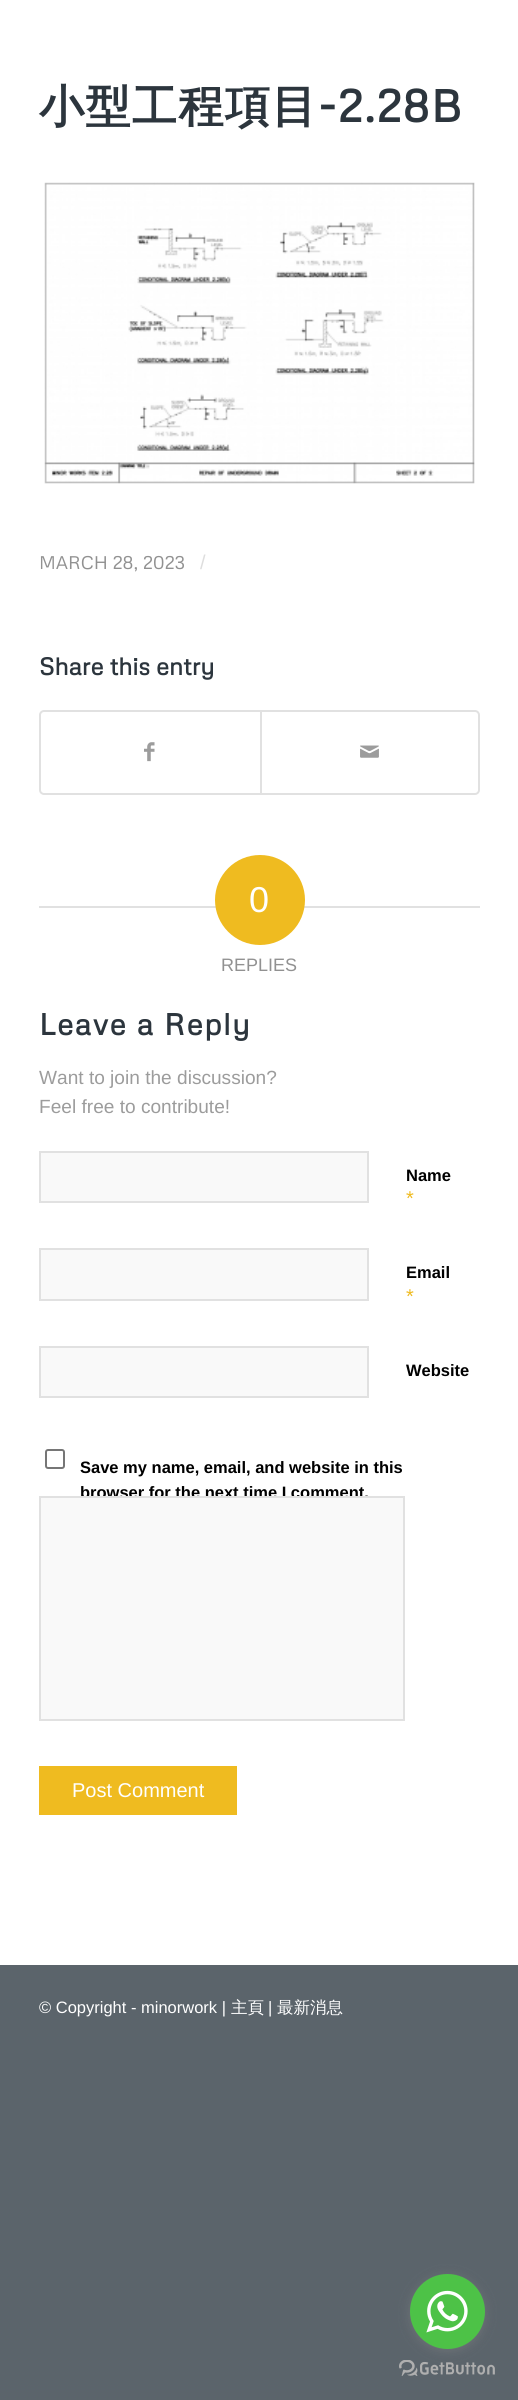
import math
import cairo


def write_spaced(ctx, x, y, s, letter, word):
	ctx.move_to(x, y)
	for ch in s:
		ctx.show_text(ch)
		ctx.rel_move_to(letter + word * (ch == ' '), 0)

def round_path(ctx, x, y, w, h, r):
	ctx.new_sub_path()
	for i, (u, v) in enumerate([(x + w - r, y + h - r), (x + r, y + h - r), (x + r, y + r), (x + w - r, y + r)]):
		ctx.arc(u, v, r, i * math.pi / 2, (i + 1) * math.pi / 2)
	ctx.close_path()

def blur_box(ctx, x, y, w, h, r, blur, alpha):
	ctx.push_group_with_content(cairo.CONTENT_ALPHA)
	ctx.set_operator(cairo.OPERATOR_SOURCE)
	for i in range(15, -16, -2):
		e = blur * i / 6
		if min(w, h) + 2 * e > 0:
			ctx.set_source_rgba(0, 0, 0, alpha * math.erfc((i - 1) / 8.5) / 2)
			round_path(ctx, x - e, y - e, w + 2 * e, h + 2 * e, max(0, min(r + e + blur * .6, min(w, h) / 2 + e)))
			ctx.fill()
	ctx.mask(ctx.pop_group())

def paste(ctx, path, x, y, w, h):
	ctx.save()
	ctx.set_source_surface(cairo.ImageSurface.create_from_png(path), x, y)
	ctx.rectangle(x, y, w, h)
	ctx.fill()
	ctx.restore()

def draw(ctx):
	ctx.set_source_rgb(0.357, 0.392, 0.42)
	ctx.paint()
	ctx.set_source_rgb(1, 1, 1)
	ctx.rectangle(0, 0, 518, 1965)
	ctx.fill()
	ctx.select_font_face('WenQuanYi Zen Hei', cairo.FONT_SLANT_NORMAL, cairo.FONT_WEIGHT_BOLD)
	ctx.set_font_size(45)
	ctx.set_source_rgb(0.173, 0.208, 0.239)
	write_spaced(ctx, 39, 122, '小型工程項目', 1.5, 0)
	ctx.select_font_face('Metrophobic', cairo.FONT_SLANT_NORMAL, cairo.FONT_WEIGHT_BOLD)
	write_spaced(ctx, 318, 122, '-2.28B', 1.5, 0)
	paste(ctx, 'media/1.png', 44, 182, 431, 302)
	ctx.select_font_face('Metrophobic')
	ctx.set_font_size(18.25)
	ctx.set_source_rgb(0.569, 0.569, 0.569)
	ctx.move_to(39, 569)
	ctx.show_text('MARCH 28, 2023')
	ctx.select_font_face('Liberation Sans')
	ctx.set_font_size(20)
	ctx.set_source_rgb(0.871, 0.871, 0.871)
	ctx.move_to(200, 569)
	ctx.show_text('/')
	ctx.select_font_face('Metrophobic', cairo.FONT_SLANT_NORMAL, cairo.FONT_WEIGHT_BOLD)
	ctx.set_font_size(24)
	ctx.set_source_rgb(0.173, 0.208, 0.239)
	ctx.move_to(39, 675)
	ctx.show_text('Share this entry')
	round_path(ctx, 40, 711, 439, 83, 4)
	ctx.set_source_rgb(0.882, 0.882, 0.882)
	ctx.stroke()
	paste(ctx, 'media/2.png', 144, 742, 11, 20)
	ctx.rectangle(260, 711, 2, 83)
	ctx.fill()
	paste(ctx, 'media/3.png', 360, 745, 19, 13)
	ctx.rectangle(39, 906, 185, 2)
	ctx.fill()
	ctx.rectangle(296, 906, 184, 2)
	ctx.fill()
	ctx.set_source_rgb(0.937, 0.733, 0.125)
	ctx.arc(260, 900, 45, 0, 2 * math.pi)
	ctx.fill()
	ctx.select_font_face('Liberation Sans')
	ctx.set_font_size(36)
	ctx.set_source_rgb(1, 1, 1)
	ctx.move_to(249, 912)
	ctx.show_text('0')
	ctx.set_font_size(18)
	ctx.set_source_rgb(0.569, 0.569, 0.569)
	ctx.move_to(221, 971)
	ctx.show_text('REPLIES')
	ctx.select_font_face('Metrophobic', cairo.FONT_SLANT_NORMAL, cairo.FONT_WEIGHT_BOLD)
	ctx.set_font_size(30)
	ctx.set_source_rgb(0.173, 0.208, 0.239)
	write_spaced(ctx, 39, 1035, 'Leave a Reply', 1.5, 0)
	ctx.select_font_face('Liberation Sans')
	ctx.set_font_size(19.1)
	ctx.set_source_rgb(0.612, 0.612, 0.612)
	ctx.move_to(39, 1084)
	ctx.show_text('Want to join the discussion?')
	ctx.move_to(39, 1113)
	ctx.show_text('Feel free to contribute!')
	ctx.set_source_rgb(0.973, 0.973, 0.973)
	ctx.rectangle(40, 1152, 328, 50)
	ctx.fill_preserve()
	ctx.set_source_rgb(0.882, 0.882, 0.882)
	ctx.stroke()
	ctx.select_font_face('Liberation Sans', cairo.FONT_SLANT_NORMAL, cairo.FONT_WEIGHT_BOLD)
	ctx.set_font_size(16.5)
	ctx.set_source_rgb(0, 0, 0)
	ctx.move_to(406, 1181)
	ctx.show_text('Name')
	ctx.select_font_face('Liberation Sans')
	ctx.set_font_size(20)
	ctx.set_source_rgb(0.937, 0.733, 0.125)
	ctx.move_to(406, 1205)
	ctx.show_text('*')
	ctx.set_source_rgb(0.973, 0.973, 0.973)
	ctx.rectangle(40, 1249, 328, 51)
	ctx.fill_preserve()
	ctx.set_source_rgb(0.882, 0.882, 0.882)
	ctx.stroke()
	ctx.select_font_face('Liberation Sans', cairo.FONT_SLANT_NORMAL, cairo.FONT_WEIGHT_BOLD)
	ctx.set_font_size(16.5)
	ctx.set_source_rgb(0, 0, 0)
	ctx.move_to(406, 1278)
	ctx.show_text('Email')
	ctx.select_font_face('Liberation Sans')
	ctx.set_font_size(20)
	ctx.set_source_rgb(0.937, 0.733, 0.125)
	ctx.move_to(406, 1303)
	ctx.show_text('*')
	ctx.set_source_rgb(0.973, 0.973, 0.973)
	ctx.rectangle(40, 1347, 328, 50)
	ctx.fill_preserve()
	ctx.set_source_rgb(0.882, 0.882, 0.882)
	ctx.stroke()
	ctx.select_font_face('Liberation Sans', cairo.FONT_SLANT_NORMAL, cairo.FONT_WEIGHT_BOLD)
	ctx.set_font_size(16.5)
	ctx.set_source_rgb(0, 0, 0)
	ctx.move_to(406, 1376)
	ctx.show_text('Website')
	round_path(ctx, 46, 1450, 18, 18, 2)
	ctx.set_source_rgb(0.463, 0.463, 0.463)
	ctx.stroke()
	ctx.set_source_rgb(0, 0, 0)
	ctx.move_to(80, 1473)
	ctx.show_text('Save my name, email, and website in this')
	ctx.move_to(80, 1498)
	ctx.show_text('browser for the next time I comment.')
	ctx.set_source_rgb(0.973, 0.973, 0.973)
	ctx.rectangle(40, 1497, 364, 223)
	ctx.fill_preserve()
	ctx.set_source_rgb(0.882, 0.882, 0.882)
	ctx.stroke()
	ctx.set_source_rgb(0.937, 0.733, 0.125)
	ctx.rectangle(39, 1766, 198, 49)
	ctx.fill()
	ctx.select_font_face('Liberation Sans')
	ctx.set_font_size(20)
	ctx.set_source_rgb(1, 1, 1)
	ctx.move_to(72, 1797)
	ctx.show_text('Post Comment')
	ctx.set_font_size(16.5)
	ctx.move_to(39, 2013)
	ctx.show_text('© Copyright - minorwork |')
	ctx.select_font_face('WenQuanYi Zen Hei Medium')
	ctx.move_to(231, 2013)
	ctx.show_text('主頁')
	ctx.select_font_face('Liberation Sans')
	ctx.move_to(268, 2013)
	ctx.show_text('|')
	ctx.select_font_face('WenQuanYi Zen Hei Medium')
	ctx.move_to(277, 2013)
	ctx.show_text('最新消息')
	paste(ctx, 'media/5.png', 399, 2360, 96, 16)
	ctx.set_source_rgb(0.533, 0.533, 0.533)
	blur_box(ctx, 410, 2276, 75, 75, 37.5, 5, 0.4)
	ctx.set_source_rgb(0.302, 0.761, 0.278)
	ctx.arc(447.5, 2311.5, 37.5, 0, 2 * math.pi)
	ctx.fill()
	paste(ctx, 'media/4.png', 426, 2290, 42, 43)


surface = cairo.ImageSurface(cairo.FORMAT_RGB24, 518, 2400)
ctx = cairo.Context(surface)
options = cairo.FontOptions()
options.set_hint_metrics(cairo.HINT_METRICS_OFF)
options.set_hint_style(cairo.HINT_STYLE_NONE)
ctx.set_font_options(options)
ctx.set_miter_limit(4)
draw(ctx)
surface.write_to_png('image.png')
